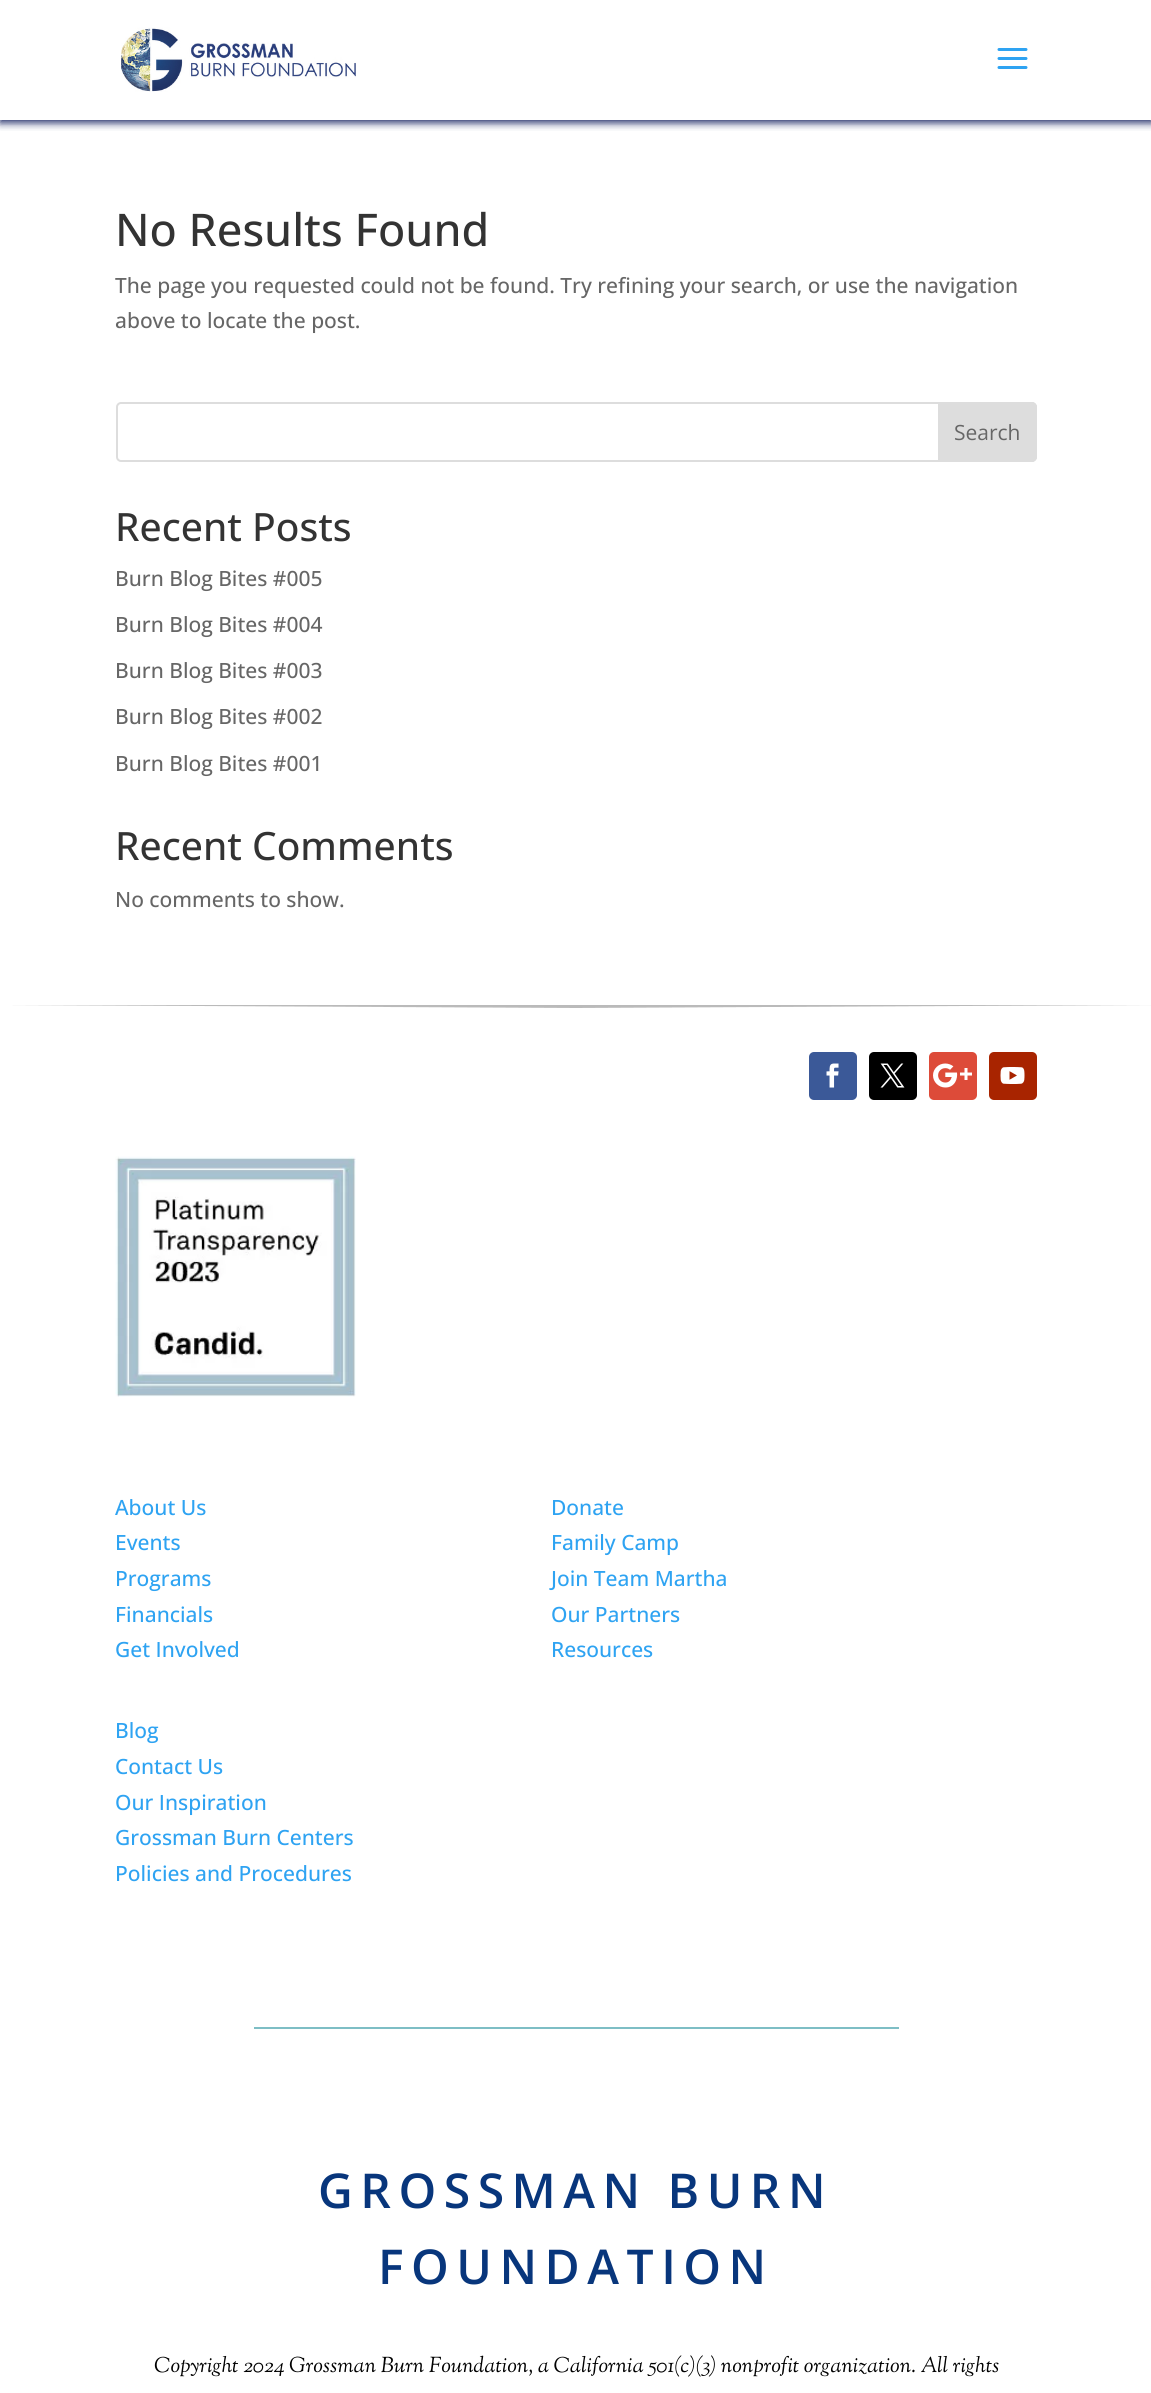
import math
import cairo


def write_spaced(ctx, x, y, s, letter, word):
	ctx.move_to(x, y)
	for ch in s:
		ctx.show_text(ch)
		ctx.rel_move_to(letter + word * (ch == ' '), 0)

def round_path(ctx, x, y, w, h, r):
	ctx.new_sub_path()
	for i, (u, v) in enumerate([(x + w - r, y + h - r), (x + r, y + h - r), (x + r, y + r), (x + w - r, y + r)]):
		ctx.arc(u, v, r, i * math.pi / 2, (i + 1) * math.pi / 2)
	ctx.close_path()

def blur_box(ctx, x, y, w, h, r, blur, alpha):
	ctx.push_group_with_content(cairo.CONTENT_ALPHA)
	ctx.set_operator(cairo.OPERATOR_SOURCE)
	for i in range(15, -16, -2):
		e = blur * i / 6
		if min(w, h) + 2 * e > 0:
			ctx.set_source_rgba(0, 0, 0, alpha * math.erfc((i - 1) / 8.5) / 2)
			round_path(ctx, x - e, y - e, w + 2 * e, h + 2 * e, max(0, min(r + e + blur * .6, min(w, h) / 2 + e)))
			ctx.fill()
	ctx.mask(ctx.pop_group())

def paste(ctx, path, x, y, w, h):
	ctx.save()
	ctx.set_source_surface(cairo.ImageSurface.create_from_png(path), x, y)
	ctx.rectangle(x, y, w, h)
	ctx.fill()
	ctx.restore()

def draw(ctx):
	ctx.set_source_rgb(1, 1, 1)
	ctx.paint()
	ctx.save()
	ctx.rectangle(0, 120, 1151, 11)
	ctx.clip()
	ctx.set_source_rgb(0.047, 0.094, 0.349)
	blur_box(ctx, 0, 3, 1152, 120, 0, 4, 0.9)
	ctx.restore()
	paste(ctx, 'media/1.png', 121, 27, 235, 65)
	paste(ctx, 'media/2.png', 997, 48, 31, 21)
	ctx.select_font_face('Open Sans Medium')
	ctx.set_font_size(45)
	ctx.set_source_rgb(0.2, 0.2, 0.2)
	ctx.move_to(115, 246)
	ctx.show_text('No Results Found')
	ctx.set_font_size(21)
	ctx.set_source_rgb(0.4, 0.4, 0.4)
	ctx.move_to(115, 293)
	ctx.show_text('The page you requested could not be found. Try refining your search, or use the navigation')
	ctx.move_to(115, 328)
	ctx.show_text('above to locate the post.')
	round_path(ctx, 117, 403, 919, 58, 4)
	ctx.set_source_rgb(0.867, 0.867, 0.867)
	ctx.stroke()
	ctx.new_path()
	ctx.move_to(939, 403)
	ctx.line_to(1032, 403)
	ctx.curve_to(1034, 403, 1036, 405, 1036, 407)
	ctx.line_to(1036, 457)
	ctx.curve_to(1036, 459, 1034, 461, 1032, 461)
	ctx.line_to(939, 461)
	ctx.close_path()
	ctx.fill_preserve()
	ctx.stroke()
	ctx.select_font_face('Open Sans')
	ctx.set_source_rgb(0.4, 0.4, 0.4)
	ctx.move_to(954, 440)
	ctx.show_text('Search')
	ctx.select_font_face('Open Sans Medium')
	ctx.set_font_size(39)
	ctx.set_source_rgb(0.2, 0.2, 0.2)
	ctx.move_to(115, 541)
	ctx.show_text('Recent Posts')
	ctx.set_font_size(21)
	ctx.set_source_rgb(0.4, 0.4, 0.4)
	for x, y, s in [
		(115, 586, 'Burn Blog Bites #005'),
		(115, 632, 'Burn Blog Bites #004'),
		(115, 678, 'Burn Blog Bites #003'),
		(115, 724, 'Burn Blog Bites #002'),
		(115, 771, 'Burn Blog Bites #001'),
	]:
		ctx.move_to(x, y)
		ctx.show_text(s)
	ctx.set_font_size(39)
	ctx.set_source_rgb(0.2, 0.2, 0.2)
	ctx.move_to(115, 860)
	ctx.show_text('Recent Comments')
	ctx.set_font_size(21)
	ctx.set_source_rgb(0.4, 0.4, 0.4)
	ctx.move_to(115, 907)
	ctx.show_text('No comments to show.')
	ctx.set_source_rgb(0.729, 0.729, 0.729)
	ctx.new_path()
	ctx.move_to(576, 1008)
	ctx.line_to(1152, 1005)
	ctx.line_to(0, 1005)
	ctx.close_path()
	ctx.fill()
	ctx.set_source_rgb(0.231, 0.349, 0.596)
	round_path(ctx, 809, 1052, 48, 48, 5)
	ctx.fill()
	paste(ctx, 'media/3.png', 826, 1063, 13, 25)
	ctx.set_source_rgb(0, 0, 0)
	round_path(ctx, 869, 1052, 48, 48, 5)
	ctx.fill()
	paste(ctx, 'media/4.png', 880, 1063, 25, 25)
	ctx.set_source_rgb(0.867, 0.294, 0.224)
	round_path(ctx, 929, 1052, 48, 48, 5)
	ctx.fill()
	paste(ctx, 'media/5.png', 933, 1063, 39, 25)
	ctx.set_source_rgb(0.659, 0.141, 0)
	round_path(ctx, 989, 1052, 48, 48, 5)
	ctx.fill()
	paste(ctx, 'media/6.png', 1000, 1067, 25, 17)
	paste(ctx, 'media/7.png', 115, 1156, 241, 241)
	ctx.set_source_rgb(0.18, 0.639, 0.949)
	for x, y, s in [
		(115, 1515, 'About Us'),
		(115, 1550, 'Events'),
		(115, 1586, 'Programs'),
		(115, 1622, 'Financials'),
		(115, 1657, 'Get Involved'),
		(551, 1515, 'Donate'),
		(551, 1550, 'Family Camp'),
		(551, 1586, 'Join Team Martha'),
		(551, 1622, 'Our Partners'),
		(551, 1657, 'Resources'),
		(115, 1738, 'Blog'),
		(115, 1774, 'Contact Us'),
		(115, 1810, 'Our Inspiration'),
		(115, 1845, 'Grossman Burn Centers'),
		(115, 1881, 'Policies and Procedures'),
	]:
		ctx.move_to(x, y)
		ctx.show_text(s)
	ctx.set_source_rgb(0.494, 0.745, 0.773)
	ctx.rectangle(254, 2027, 645, 2)
	ctx.fill()
	ctx.select_font_face('Open Sans SemiBold')
	ctx.set_font_size(48)
	ctx.set_source_rgb(0.035, 0.212, 0.486)
	write_spaced(ctx, 318, 2208, 'GROSSMAN BURN', 7.5, 0)
	write_spaced(ctx, 378, 2284, 'FOUNDATION', 7.5, 0)
	ctx.select_font_face('Sorts Mill Goudy', cairo.FONT_SLANT_ITALIC)
	ctx.set_font_size(21.55)
	ctx.set_source_rgb(0, 0, 0)
	ctx.move_to(154, 2372)
	ctx.show_text('Copyright 2024 Grossman Burn Foundation, a California 501(c)(3) nonprofit organization. All rights')


surface = cairo.ImageSurface(cairo.FORMAT_RGB24, 1151, 2393)
ctx = cairo.Context(surface)
options = cairo.FontOptions()
options.set_hint_metrics(cairo.HINT_METRICS_OFF)
options.set_hint_style(cairo.HINT_STYLE_NONE)
ctx.set_font_options(options)
ctx.set_miter_limit(4)
draw(ctx)
surface.write_to_png('image.png')
